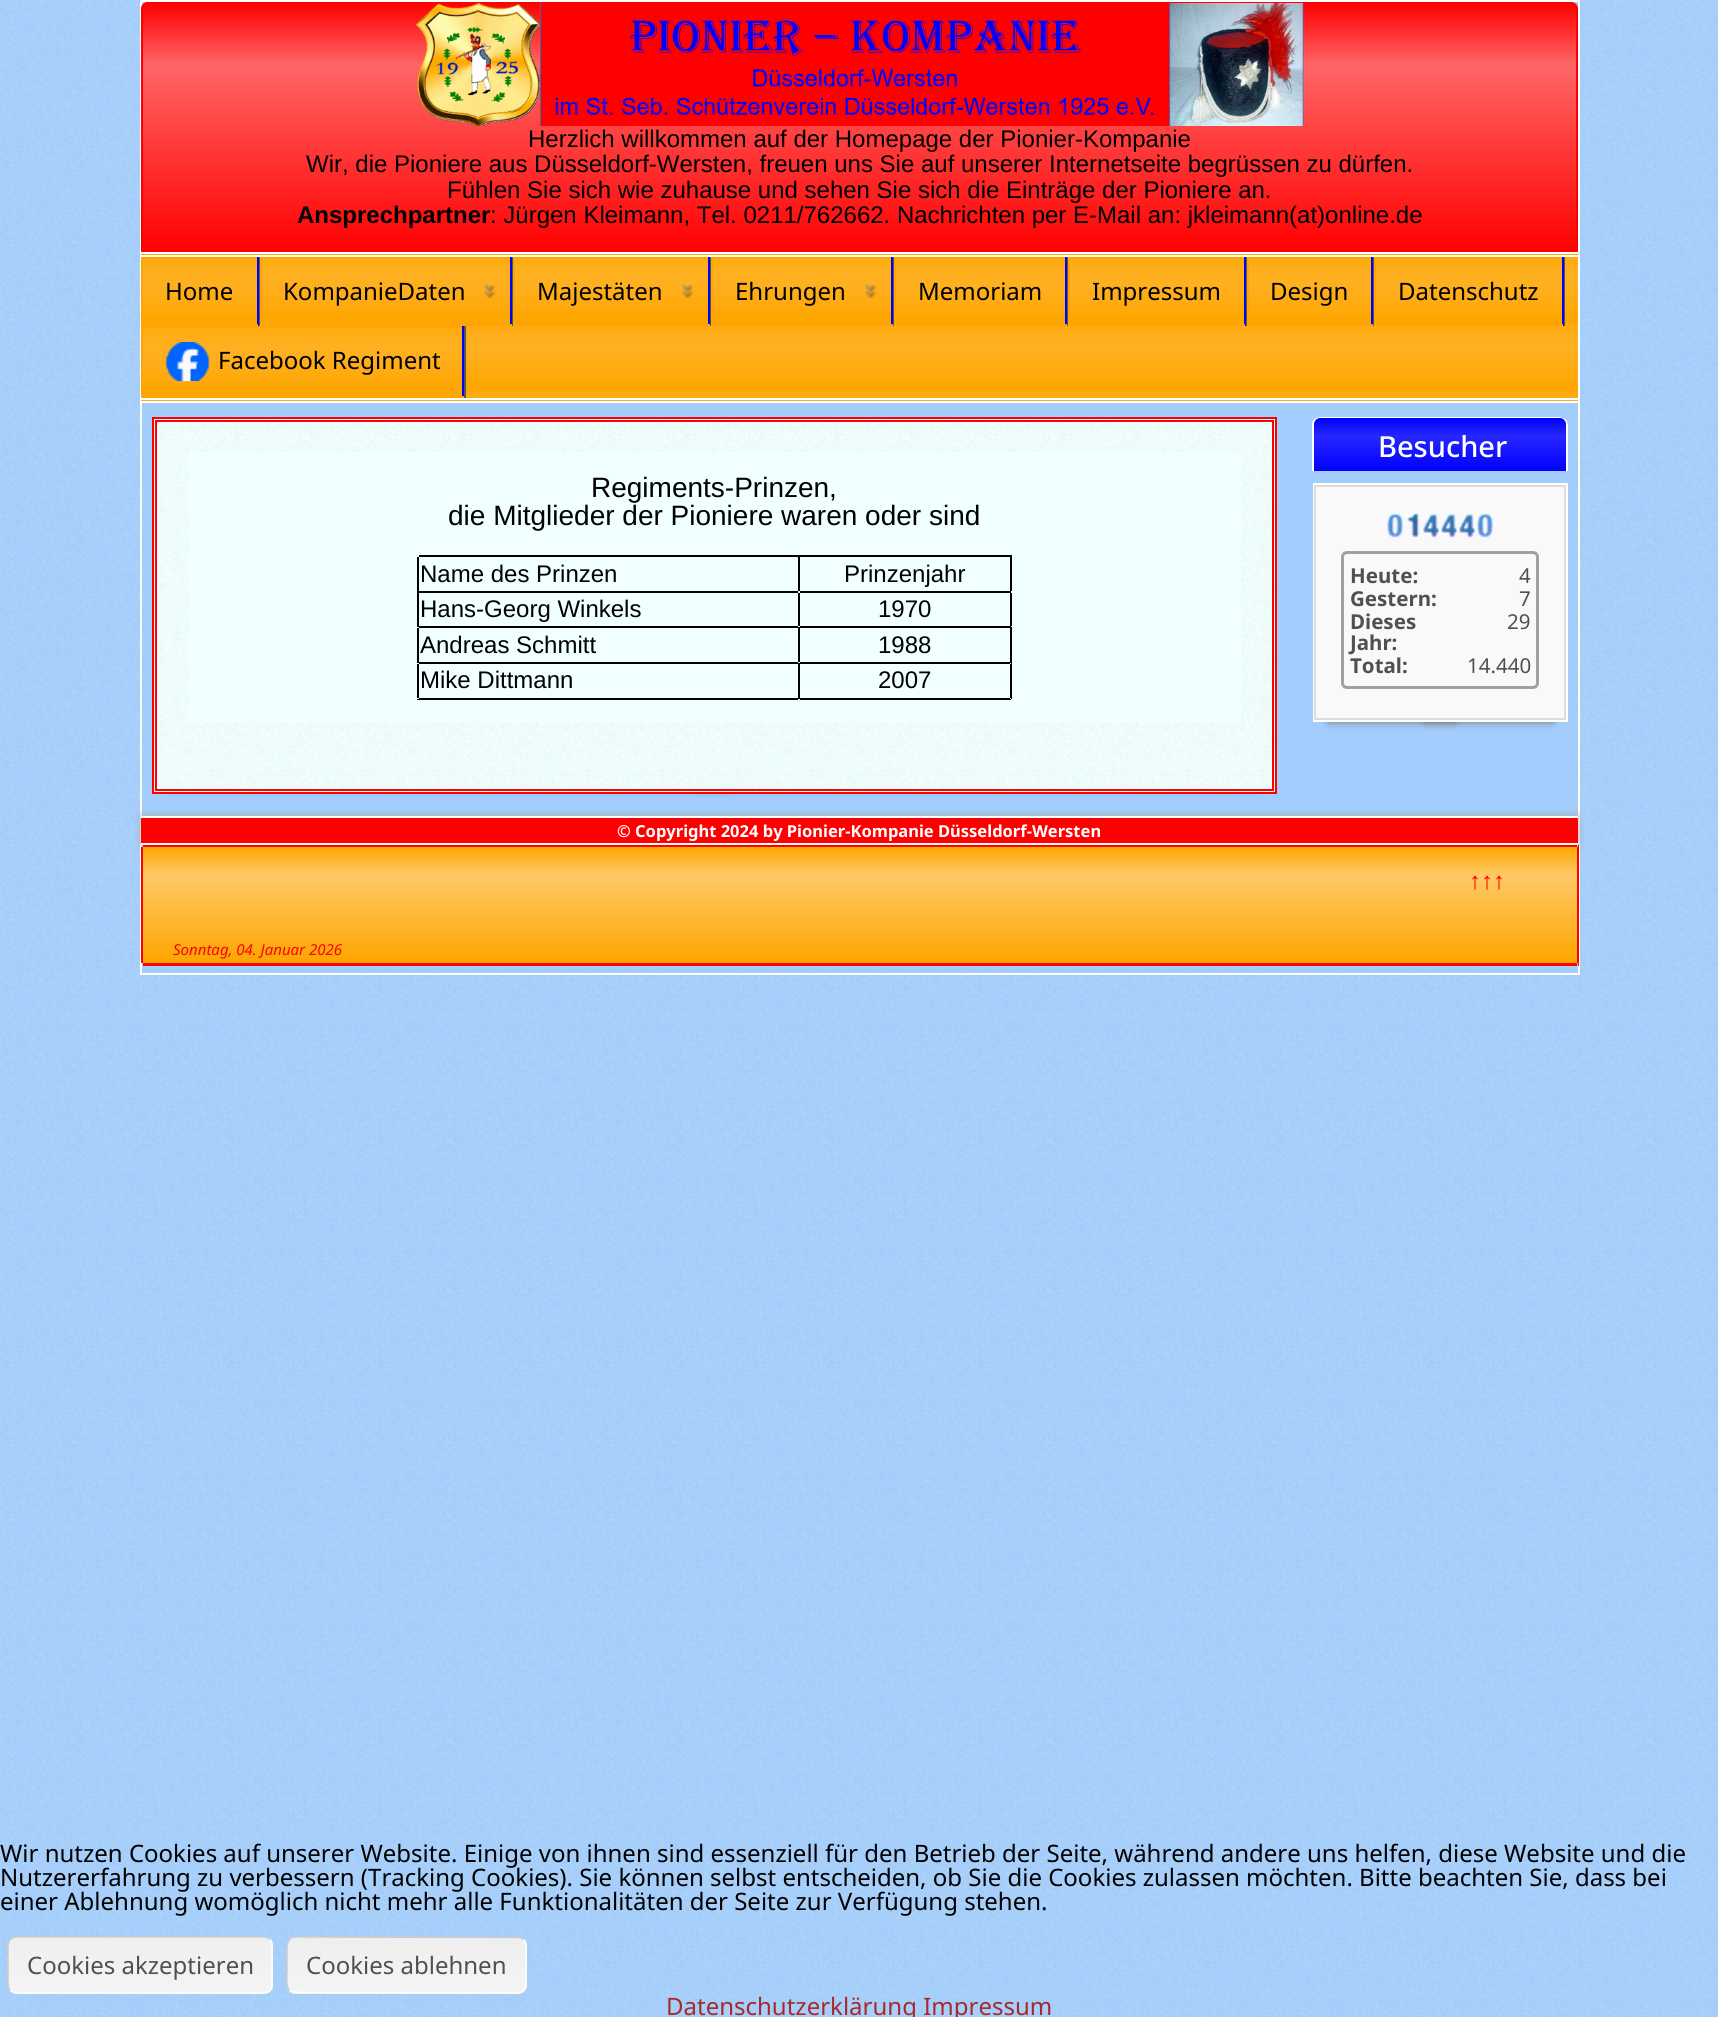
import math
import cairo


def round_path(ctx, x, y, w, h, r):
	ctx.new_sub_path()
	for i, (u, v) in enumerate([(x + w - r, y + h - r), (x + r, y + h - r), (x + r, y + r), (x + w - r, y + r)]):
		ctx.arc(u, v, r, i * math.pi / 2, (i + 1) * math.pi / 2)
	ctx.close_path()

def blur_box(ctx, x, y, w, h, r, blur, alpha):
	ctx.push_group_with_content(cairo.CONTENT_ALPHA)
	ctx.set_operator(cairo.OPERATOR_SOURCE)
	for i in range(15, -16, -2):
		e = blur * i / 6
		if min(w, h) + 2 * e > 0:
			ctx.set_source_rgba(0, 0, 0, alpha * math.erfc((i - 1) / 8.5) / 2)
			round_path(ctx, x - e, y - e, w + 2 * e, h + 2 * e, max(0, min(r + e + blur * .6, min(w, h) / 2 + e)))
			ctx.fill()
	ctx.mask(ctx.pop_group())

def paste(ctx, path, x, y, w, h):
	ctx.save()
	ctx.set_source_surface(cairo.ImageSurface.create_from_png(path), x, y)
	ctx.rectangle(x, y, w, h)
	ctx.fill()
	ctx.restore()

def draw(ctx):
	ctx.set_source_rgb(0.635, 0.804, 0.992)
	ctx.paint()
	paste(ctx, 'media/1.png', 0, 0, 1718, 2017)
	ctx.set_source_rgb(0.635, 0.804, 0.992)
	ctx.rectangle(141, 1, 1438, 973)
	ctx.fill_preserve()
	ctx.set_source_rgb(1, 1, 1)
	ctx.stroke()
	ctx.set_source_rgb(1, 0, 0)
	ctx.new_path()
	ctx.move_to(149, 2)
	ctx.line_to(1570, 2)
	ctx.curve_to(1574.5, 2, 1578, 5.5, 1578, 10)
	ctx.line_to(1578, 252)
	ctx.line_to(141, 252)
	ctx.line_to(141, 10)
	ctx.curve_to(141, 5.5, 144.5, 2, 149, 2)
	ctx.close_path()
	ctx.fill()
	ctx.save()
	ctx.new_path()
	ctx.move_to(149, 2)
	ctx.line_to(1570, 2)
	ctx.curve_to(1574.5, 2, 1578, 5.5, 1578, 10)
	ctx.line_to(1578, 252)
	ctx.line_to(141, 252)
	ctx.line_to(141, 10)
	ctx.curve_to(141, 5.5, 144.5, 2, 149, 2)
	ctx.close_path()
	ctx.clip()
	gradient = cairo.LinearGradient(860, 3, 860, 252)
	gradient.add_color_stop_rgba(0, 1, 0, 0, 1)
	gradient.add_color_stop_rgba(0.25, 1, 0.4, 0.4, 1)
	gradient.add_color_stop_rgba(1, 1, 0, 0, 1)
	ctx.set_source(gradient)
	ctx.rectangle(143, 3, 1434, 249)
	ctx.fill()
	ctx.restore()
	ctx.set_fill_rule(cairo.FILL_RULE_EVEN_ODD)
	ctx.new_path()
	ctx.move_to(148, 2)
	ctx.line_to(1570, 2)
	ctx.curve_to(1575, 2, 1578, 5, 1578, 9)
	ctx.line_to(1578, 252)
	ctx.line_to(141, 252)
	ctx.line_to(141, 9)
	ctx.curve_to(141, 5, 144, 2, 148, 2)
	ctx.close_path()
	ctx.move_to(148, 3)
	ctx.line_to(1570, 3)
	ctx.curve_to(1574, 3, 1576, 6, 1576, 9)
	ctx.line_to(1576, 252)
	ctx.line_to(142, 252)
	ctx.line_to(142, 9)
	ctx.curve_to(142, 6, 145, 3, 148, 3)
	ctx.close_path()
	ctx.fill()
	paste(ctx, 'media/2.png', 416, 3, 888, 123)
	ctx.select_font_face('Liberation Sans')
	ctx.set_font_size(24)
	ctx.set_source_rgb(0, 0, 0)
	for x, y, s in [
		(528, 147, 'Herzlich willkommen auf der Homepage der Pionier-Kompanie'),
		(306, 172, 'Wir, die Pioniere aus Düsseldorf-Wersten, freuen uns Sie auf unserer Internetseite begrüssen zu dürfen.'),
		(447, 198, 'Fühlen Sie sich wie zuhause und sehen Sie sich die Einträge der Pioniere an.'),
	]:
		ctx.move_to(x, y)
		ctx.show_text(s)
	ctx.select_font_face('Liberation Sans', cairo.FONT_SLANT_NORMAL, cairo.FONT_WEIGHT_BOLD)
	ctx.move_to(297, 223)
	ctx.show_text('Ansprechpartner')
	ctx.select_font_face('Liberation Sans')
	ctx.move_to(490, 223)
	ctx.show_text(': Jürgen Kleimann, Tel. 0211/762662. Nachrichten per E-Mail an: jkleimann(at)online.de')
	ctx.set_source_rgb(1, 0.647, 0)
	ctx.rectangle(141, 254, 1437, 147)
	ctx.fill()
	paste(ctx, 'media/3.png', 141, 257, 1437, 144)
	ctx.set_source_rgb(1, 1, 1)
	ctx.rectangle(141, 252, 1437, 2)
	ctx.rectangle(141, 255, 1437, 2)
	ctx.rectangle(141, 398, 1437, 2)
	ctx.rectangle(141, 401, 1437, 2)
	ctx.fill()
	ctx.set_source_rgb(0.333, 0.333, 0.333)
	ctx.rectangle(259, 257, 1, 69)
	ctx.fill()
	ctx.set_source_rgb(1, 0.647, 0)
	ctx.rectangle(143, 259, 114, 60)
	ctx.fill()
	paste(ctx, 'media/4.png', 143, 259, 114, 57)
	ctx.rectangle(141, 257, 117, 2)
	ctx.fill()
	ctx.set_source_rgb(0, 0, 1)
	ctx.rectangle(257, 257, 2, 69)
	ctx.fill()
	ctx.set_source_rgb(1, 0.647, 0)
	ctx.rectangle(141, 324, 117, 2)
	ctx.rectangle(141, 257, 2, 69)
	ctx.fill()
	ctx.select_font_face('Noto Sans')
	ctx.set_source_rgb(0, 0, 0)
	ctx.move_to(165, 300)
	ctx.show_text('Home')
	ctx.set_source_rgb(0.333, 0.333, 0.333)
	ctx.rectangle(512, 257, 1, 69)
	ctx.fill()
	ctx.set_source_rgb(1, 0.647, 0)
	ctx.rectangle(262, 259, 248, 60)
	ctx.fill()
	paste(ctx, 'media/5.png', 259, 257, 251, 57)
	ctx.rectangle(260, 257, 252, 2)
	ctx.fill()
	ctx.set_source_rgb(0, 0, 1)
	ctx.rectangle(510, 257, 2, 69)
	ctx.fill()
	ctx.set_source_rgb(1, 0.647, 0)
	ctx.rectangle(260, 324, 252, 2)
	ctx.rectangle(260, 257, 2, 69)
	ctx.fill()
	ctx.set_source_rgb(0, 0, 0)
	ctx.move_to(283, 300)
	ctx.show_text('KompanieDaten')
	ctx.set_source_rgb(0.333, 0.333, 0.333)
	ctx.rectangle(710, 257, 1, 69)
	ctx.fill()
	ctx.set_source_rgb(1, 0.647, 0)
	ctx.rectangle(515, 259, 193, 60)
	ctx.fill()
	paste(ctx, 'media/6.png', 515, 259, 193, 55)
	ctx.rectangle(513, 257, 197, 2)
	ctx.fill()
	ctx.set_source_rgb(0, 0, 1)
	ctx.rectangle(708, 257, 2, 69)
	ctx.fill()
	ctx.set_source_rgb(1, 0.647, 0)
	ctx.rectangle(513, 324, 197, 2)
	ctx.rectangle(513, 257, 2, 69)
	ctx.fill()
	ctx.set_source_rgb(0, 0, 0)
	ctx.move_to(537, 300)
	ctx.show_text('Majestäten')
	ctx.set_source_rgb(0.333, 0.333, 0.333)
	ctx.rectangle(893, 257, 1, 69)
	ctx.fill()
	ctx.set_source_rgb(1, 0.647, 0)
	ctx.rectangle(713, 259, 178, 60)
	ctx.fill()
	paste(ctx, 'media/7.png', 713, 259, 178, 55)
	ctx.rectangle(711, 257, 182, 2)
	ctx.fill()
	ctx.set_source_rgb(0, 0, 1)
	ctx.rectangle(891, 257, 2, 69)
	ctx.fill()
	ctx.set_source_rgb(1, 0.647, 0)
	ctx.rectangle(711, 324, 182, 2)
	ctx.rectangle(711, 257, 2, 69)
	ctx.fill()
	ctx.set_source_rgb(0, 0, 0)
	ctx.move_to(735, 300)
	ctx.show_text('Ehrungen')
	ctx.set_source_rgb(0.333, 0.333, 0.333)
	ctx.rectangle(1067, 257, 1, 69)
	ctx.fill()
	ctx.set_source_rgb(1, 0.647, 0)
	ctx.rectangle(896, 259, 169, 60)
	ctx.fill()
	paste(ctx, 'media/8.png', 896, 259, 169, 57)
	ctx.rectangle(894, 257, 173, 2)
	ctx.fill()
	ctx.set_source_rgb(0, 0, 1)
	ctx.rectangle(1065, 257, 2, 69)
	ctx.fill()
	ctx.set_source_rgb(1, 0.647, 0)
	ctx.rectangle(894, 324, 173, 2)
	ctx.rectangle(894, 257, 2, 69)
	ctx.fill()
	ctx.set_source_rgb(0, 0, 0)
	ctx.move_to(918, 300)
	ctx.show_text('Memoriam')
	ctx.set_source_rgb(0.333, 0.333, 0.333)
	ctx.rectangle(1246, 257, 1, 69)
	ctx.fill()
	ctx.set_source_rgb(1, 0.647, 0)
	ctx.rectangle(1070, 259, 174, 60)
	ctx.fill()
	paste(ctx, 'media/9.png', 1070, 259, 174, 57)
	ctx.rectangle(1068, 257, 177, 2)
	ctx.fill()
	ctx.set_source_rgb(0, 0, 1)
	ctx.rectangle(1244, 257, 2, 69)
	ctx.fill()
	ctx.set_source_rgb(1, 0.647, 0)
	ctx.rectangle(1068, 324, 177, 2)
	ctx.rectangle(1068, 257, 2, 69)
	ctx.fill()
	ctx.set_source_rgb(0, 0, 0)
	ctx.move_to(1092, 300)
	ctx.show_text('Impressum')
	ctx.set_source_rgb(0.333, 0.333, 0.333)
	ctx.rectangle(1373, 257, 1, 69)
	ctx.fill()
	ctx.set_source_rgb(1, 0.647, 0)
	ctx.rectangle(1249, 259, 122, 60)
	ctx.fill()
	paste(ctx, 'media/10.png', 1246, 258, 125, 58)
	ctx.rectangle(1247, 257, 126, 2)
	ctx.fill()
	ctx.set_source_rgb(0, 0, 1)
	ctx.rectangle(1371, 257, 2, 69)
	ctx.fill()
	ctx.set_source_rgb(1, 0.647, 0)
	ctx.rectangle(1247, 324, 126, 2)
	ctx.rectangle(1247, 257, 2, 69)
	ctx.fill()
	ctx.set_source_rgb(0, 0, 0)
	ctx.move_to(1270, 300)
	ctx.show_text('Design')
	ctx.set_source_rgb(0.333, 0.333, 0.333)
	ctx.rectangle(1564, 257, 1, 69)
	ctx.fill()
	ctx.set_source_rgb(1, 0.647, 0)
	ctx.rectangle(1376, 259, 186, 60)
	ctx.fill()
	paste(ctx, 'media/11.png', 1376, 259, 186, 57)
	ctx.rectangle(1374, 257, 189, 2)
	ctx.fill()
	ctx.set_source_rgb(0, 0, 1)
	ctx.rectangle(1562, 257, 2, 69)
	ctx.fill()
	ctx.set_source_rgb(1, 0.647, 0)
	ctx.rectangle(1374, 324, 189, 2)
	ctx.rectangle(1374, 257, 2, 69)
	ctx.fill()
	ctx.set_source_rgb(0, 0, 0)
	ctx.move_to(1398, 300)
	ctx.show_text('Datenschutz')
	ctx.set_source_rgb(0.333, 0.333, 0.333)
	ctx.rectangle(464, 326, 2, 72)
	ctx.fill()
	ctx.set_source_rgb(1, 0.647, 0)
	ctx.rectangle(143, 328, 319, 68)
	ctx.fill()
	paste(ctx, 'media/12.png', 143, 328, 319, 68)
	ctx.rectangle(141, 326, 323, 2)
	ctx.fill()
	ctx.set_source_rgb(0, 0, 1)
	ctx.rectangle(462, 326, 2, 72)
	ctx.fill()
	ctx.set_source_rgb(1, 0.647, 0)
	ctx.rectangle(141, 396, 323, 2)
	ctx.rectangle(141, 326, 2, 72)
	ctx.fill()
	paste(ctx, 'media/13.png', 165, 342, 45, 39)
	ctx.set_source_rgb(0, 0, 0)
	ctx.move_to(218, 369)
	ctx.show_text('Facebook Regiment')
	ctx.set_source_rgb(0.471, 0.471, 0.471)
	blur_box(ctx, 171, 723, 558, 66, 0, 4, 1)
	blur_box(ctx, 699, 723, 558, 66, 0, 4, 1)
	ctx.set_source_rgb(0.941, 1, 1)
	ctx.rectangle(154, 419, 1121, 373)
	ctx.fill()
	paste(ctx, 'media/14.png', 151, 417, 1124, 376)
	ctx.rectangle(153, 418, 1123, 375)
	ctx.set_source_rgb(1, 0, 0)
	ctx.stroke()
	ctx.rectangle(156, 421, 1117, 369)
	ctx.stroke()
	ctx.set_source_rgb(0.941, 1, 1)
	ctx.rectangle(189, 452, 1052, 270)
	ctx.fill()
	ctx.select_font_face('Liberation Sans')
	ctx.set_font_size(28)
	ctx.set_source_rgb(0, 0, 0)
	ctx.move_to(591, 497)
	ctx.show_text('Regiments-Prinzen,')
	ctx.move_to(448, 525)
	ctx.show_text('die Mitglieder der Pioniere waren oder sind')
	ctx.rectangle(798, 555, 213, 2)
	ctx.rectangle(798, 591, 213, 2)
	ctx.rectangle(798, 626, 213, 2)
	ctx.rectangle(798, 662, 213, 2)
	ctx.rectangle(1010, 662, 2, 37)
	ctx.rectangle(798, 698, 213, 2)
	ctx.rectangle(798, 662, 2, 37)
	ctx.rectangle(417, 662, 383, 2)
	ctx.rectangle(798, 626, 2, 37)
	ctx.rectangle(417, 626, 383, 2)
	ctx.rectangle(798, 591, 2, 36)
	ctx.rectangle(417, 591, 383, 2)
	ctx.rectangle(798, 555, 2, 38)
	ctx.rectangle(417, 555, 383, 2)
	ctx.rectangle(417, 698, 383, 2)
	ctx.rectangle(417, 662, 2, 37)
	ctx.rectangle(417, 626, 2, 37)
	ctx.rectangle(417, 591, 2, 36)
	ctx.rectangle(417, 555, 2, 38)
	ctx.fill()
	ctx.set_font_size(24)
	ctx.move_to(420, 582)
	ctx.show_text('Name des Prinzen')
	ctx.rectangle(1010, 626, 2, 37)
	ctx.rectangle(1010, 591, 2, 36)
	ctx.rectangle(1010, 555, 2, 38)
	ctx.fill()
	for x, y, s in [
		(844, 582, 'Prinzenjahr'),
		(420, 617, 'Hans-Georg Winkels'),
		(878, 617, '1970'),
		(420, 653, 'Andreas Schmitt'),
		(878, 653, '1988'),
		(420, 688, 'Mike Dittmann'),
		(878, 688, '2007'),
	]:
		ctx.move_to(x, y)
		ctx.show_text(s)
	ctx.set_source_rgb(0, 0, 1)
	ctx.new_path()
	ctx.move_to(1321, 417)
	ctx.line_to(1560, 417)
	ctx.curve_to(1564.5, 417, 1568, 420.5, 1568, 425)
	ctx.line_to(1568, 471)
	ctx.line_to(1313, 471)
	ctx.line_to(1313, 425)
	ctx.curve_to(1313, 420.5, 1316.5, 417, 1321, 417)
	ctx.close_path()
	ctx.fill()
	ctx.save()
	ctx.set_fill_rule(cairo.FILL_RULE_WINDING)
	ctx.new_path()
	ctx.move_to(1321, 417)
	ctx.line_to(1560, 417)
	ctx.curve_to(1564.5, 417, 1568, 420.5, 1568, 425)
	ctx.line_to(1568, 471)
	ctx.line_to(1313, 471)
	ctx.line_to(1313, 425)
	ctx.curve_to(1313, 420.5, 1316.5, 417, 1321, 417)
	ctx.close_path()
	ctx.clip()
	gradient = cairo.LinearGradient(1440, 419, 1440, 471)
	gradient.add_color_stop_rgba(0, 0, 0, 1, 1)
	gradient.add_color_stop_rgba(0.33, 0.153, 0.153, 1, 1)
	gradient.add_color_stop_rgba(1, 0, 0, 1, 1)
	ctx.set_source(gradient)
	ctx.rectangle(1314, 419, 252, 52)
	ctx.fill()
	ctx.restore()
	ctx.set_source_rgb(1, 1, 1)
	ctx.new_path()
	ctx.move_to(1320, 417)
	ctx.line_to(1560, 417)
	ctx.curve_to(1564, 417, 1568, 420, 1568, 424)
	ctx.line_to(1568, 471)
	ctx.line_to(1312, 471)
	ctx.line_to(1312, 424)
	ctx.curve_to(1312, 420, 1316, 417, 1320, 417)
	ctx.close_path()
	ctx.move_to(1320, 418)
	ctx.line_to(1560, 418)
	ctx.curve_to(1563, 418, 1566, 421, 1566, 424)
	ctx.line_to(1566, 471)
	ctx.line_to(1314, 471)
	ctx.line_to(1314, 424)
	ctx.curve_to(1314, 421, 1317, 418, 1320, 418)
	ctx.close_path()
	ctx.fill()
	ctx.select_font_face('Noto Sans Medium')
	ctx.set_font_size(29)
	ctx.move_to(1378, 457)
	ctx.show_text('Besucher')
	ctx.set_source_rgb(0.471, 0.471, 0.471)
	blur_box(ctx, 1328, 669, 127, 53, 0, 4, 1)
	blur_box(ctx, 1425, 669, 128, 53, 0, 4, 1)
	ctx.rectangle(1314, 484, 253, 237)
	ctx.set_source_rgb(1, 1, 1)
	ctx.stroke()
	ctx.set_source_rgb(0.976, 0.976, 0.976)
	ctx.rectangle(1315, 486, 250, 233)
	ctx.fill_preserve()
	ctx.set_source_rgb(0.867, 0.867, 0.867)
	ctx.stroke()
	paste(ctx, 'media/15.png', 1386, 513, 18, 25)
	paste(ctx, 'media/16.png', 1406, 513, 14, 25)
	paste(ctx, 'media/17.png', 1422, 513, 18, 25)
	paste(ctx, 'media/17.png', 1440, 513, 18, 25)
	paste(ctx, 'media/17.png', 1458, 513, 18, 25)
	paste(ctx, 'media/18.png', 1476, 513, 18, 25)
	round_path(ctx, 1342.5, 552.5, 195, 135, 4.5)
	ctx.set_source_rgb(0.627, 0.627, 0.627)
	ctx.set_line_width(3)
	ctx.stroke()
	ctx.select_font_face('Noto Sans', cairo.FONT_SLANT_NORMAL, cairo.FONT_WEIGHT_BOLD)
	ctx.set_font_size(20.5)
	ctx.set_source_rgb(0.314, 0.314, 0.314)
	ctx.move_to(1350, 583)
	ctx.show_text('Heute:')
	ctx.select_font_face('Noto Sans')
	ctx.move_to(1519, 583)
	ctx.show_text('4')
	ctx.select_font_face('Noto Sans', cairo.FONT_SLANT_NORMAL, cairo.FONT_WEIGHT_BOLD)
	ctx.move_to(1350, 606)
	ctx.show_text('Gestern:')
	ctx.select_font_face('Noto Sans')
	ctx.move_to(1519, 606)
	ctx.show_text('7')
	ctx.select_font_face('Noto Sans', cairo.FONT_SLANT_NORMAL, cairo.FONT_WEIGHT_BOLD)
	ctx.move_to(1350, 629)
	ctx.show_text('Dieses')
	ctx.move_to(1350, 650)
	ctx.show_text('Jahr:')
	ctx.select_font_face('Noto Sans')
	ctx.move_to(1507, 629)
	ctx.show_text('29')
	ctx.select_font_face('Noto Sans', cairo.FONT_SLANT_NORMAL, cairo.FONT_WEIGHT_BOLD)
	ctx.move_to(1350, 673)
	ctx.show_text('Total:')
	ctx.select_font_face('Noto Sans')
	ctx.move_to(1467, 673)
	ctx.show_text('14.440')
	ctx.set_source_rgb(0.667, 0.667, 0.667)
	blur_box(ctx, 141, 816, 1437, 29, 0, 4, 1)
	ctx.set_source_rgb(1, 0, 0)
	ctx.rectangle(141, 818, 1437, 25)
	ctx.fill()
	ctx.set_source_rgb(1, 1, 1)
	ctx.rectangle(141, 816, 1437, 2)
	ctx.rectangle(141, 843, 1437, 2)
	ctx.fill()
	ctx.select_font_face('Noto Sans', cairo.FONT_SLANT_NORMAL, cairo.FONT_WEIGHT_BOLD)
	ctx.set_font_size(16.5)
	ctx.move_to(617, 837)
	ctx.show_text('© Copyright 2024 by Pionier-Kompanie Düsseldorf-Wersten')
	gradient = cairo.LinearGradient(860, 846, 860, 963)
	gradient.add_color_stop_rgba(0, 1, 0.647, 0, 1)
	gradient.add_color_stop_rgba(0.25, 1, 0.788, 0.4, 1)
	gradient.add_color_stop_rgba(1, 1, 0.647, 0, 1)
	ctx.set_source(gradient)
	ctx.rectangle(143, 847, 1434, 116)
	ctx.fill()
	ctx.set_source_rgb(1, 0, 0)
	ctx.rectangle(141, 845, 1437, 2)
	ctx.rectangle(1577, 845, 2, 121)
	ctx.rectangle(141, 963, 1437, 3)
	ctx.rectangle(141, 845, 2, 121)
	ctx.fill()
	ctx.select_font_face('Liberation Sans')
	ctx.set_font_size(24)
	ctx.move_to(1469, 889)
	ctx.show_text('↑↑↑')
	ctx.select_font_face('Noto Sans', cairo.FONT_SLANT_ITALIC)
	ctx.set_font_size(15)
	ctx.move_to(173, 955)
	ctx.show_text('Sonntag, 04. Januar 2026')
	ctx.select_font_face('Noto Sans')
	ctx.set_font_size(24)
	ctx.set_source_rgb(0, 0, 0)
	for x, y, s in [
		(0, 1862, 'Wir nutzen Cookies auf unserer Website. Einige von ihnen sind essenziell für den Betrieb der Seite, während andere uns helfen, diese Website und die'),
		(0, 1886, 'Nutzererfahrung zu verbessern (Tracking Cookies). Sie können selbst entscheiden, ob Sie die Cookies zulassen möchten. Bitte beachten Sie, dass bei'),
		(0, 1910, 'einer Ablehnung womöglich nicht mehr alle Funktionalitäten der Seite zur Verfügung stehen.'),
	]:
		ctx.move_to(x, y)
		ctx.show_text(s)
	ctx.set_source_rgb(0.937, 0.937, 0.937)
	round_path(ctx, 8, 1937, 265, 57, 9)
	ctx.fill()
	ctx.save()
	ctx.set_fill_rule(cairo.FILL_RULE_WINDING)
	round_path(ctx, 8, 1937, 265, 57, 9)
	ctx.clip()
	gradient = cairo.LinearGradient(140, 1938, 140, 1992)
	gradient.add_color_stop_rgba(0, 0.937, 0.937, 0.937, 1)
	gradient.add_color_stop_rgba(1, 0.957, 0.957, 0.957, 1)
	ctx.set_source(gradient)
	ctx.rectangle(8, 1938, 265, 54)
	ctx.fill()
	ctx.restore()
	ctx.new_path()
	ctx.move_to(270, 1939.5)
	ctx.curve_to(271.5, 1941, 272, 1943.5, 272, 1945.5)
	ctx.line_to(272, 1984.5)
	ctx.curve_to(272, 1986.5, 271.5, 1989, 270, 1990.5)
	ctx.curve_to(268.5, 1992, 266, 1993, 264, 1993)
	ctx.line_to(16.5, 1993)
	ctx.curve_to(14.5, 1993, 12, 1992, 10.5, 1990.5)
	ctx.set_source_rgb(1, 1, 1)
	ctx.set_line_width(1.5)
	ctx.stroke()
	ctx.new_path()
	ctx.move_to(10.5, 1990.5)
	ctx.curve_to(9, 1989, 8.5, 1986.5, 8, 1984.5)
	ctx.line_to(8, 1945.5)
	ctx.curve_to(8, 1943.5, 9, 1941, 10.5, 1939.5)
	ctx.curve_to(12, 1938, 14.5, 1937, 16.5, 1937)
	ctx.line_to(264, 1937)
	ctx.curve_to(266, 1937, 268.5, 1938, 270, 1939.5)
	ctx.set_source_rgb(0.8, 0.8, 0.8)
	ctx.stroke()
	ctx.set_source_rgb(0.314, 0.314, 0.314)
	ctx.move_to(27, 1974)
	ctx.show_text('Cookies akzeptieren')
	ctx.set_source_rgb(0.937, 0.937, 0.937)
	round_path(ctx, 287, 1937, 240, 57, 9)
	ctx.fill()
	ctx.save()
	ctx.set_fill_rule(cairo.FILL_RULE_WINDING)
	round_path(ctx, 287, 1937, 240, 57, 9)
	ctx.clip()
	gradient = cairo.LinearGradient(407, 1938, 407, 1992)
	gradient.add_color_stop_rgba(0, 0.937, 0.937, 0.937, 1)
	gradient.add_color_stop_rgba(1, 0.957, 0.957, 0.957, 1)
	ctx.set_source(gradient)
	ctx.rectangle(287, 1938, 240, 54)
	ctx.fill()
	ctx.restore()
	ctx.new_path()
	ctx.move_to(523.5, 1939.5)
	ctx.curve_to(527.5, 1944, 526, 1953.5, 526, 1958.5)
	ctx.line_to(526, 1978)
	ctx.curve_to(526, 1984, 526.5, 1992.5, 517.5, 1993)
	ctx.line_to(294, 1992.5)
	ctx.curve_to(292.5, 1992.5, 291, 1991.5, 289.5, 1990.5)
	ctx.set_source_rgb(1, 1, 1)
	ctx.stroke()
	ctx.new_path()
	ctx.move_to(289.5, 1990.5)
	ctx.curve_to(285.5, 1986, 287, 1976.5, 287, 1971.5)
	ctx.line_to(287, 1952)
	ctx.curve_to(287, 1946, 286.5, 1937.5, 295.5, 1937)
	ctx.line_to(519, 1937.5)
	ctx.curve_to(520.5, 1937.5, 522, 1938.5, 523.5, 1939.5)
	ctx.set_source_rgb(0.8, 0.8, 0.8)
	ctx.stroke()
	ctx.set_source_rgb(0.314, 0.314, 0.314)
	ctx.move_to(306, 1974)
	ctx.show_text('Cookies ablehnen')
	ctx.set_source_rgb(0.647, 0.165, 0.165)
	ctx.move_to(666, 2015)
	ctx.show_text('Datenschutzerklärung Impressum')


surface = cairo.ImageSurface(cairo.FORMAT_RGB24, 1718, 2017)
ctx = cairo.Context(surface)
options = cairo.FontOptions()
options.set_hint_metrics(cairo.HINT_METRICS_OFF)
options.set_hint_style(cairo.HINT_STYLE_NONE)
ctx.set_font_options(options)
ctx.set_miter_limit(4)
draw(ctx)
surface.write_to_png('image.png')
